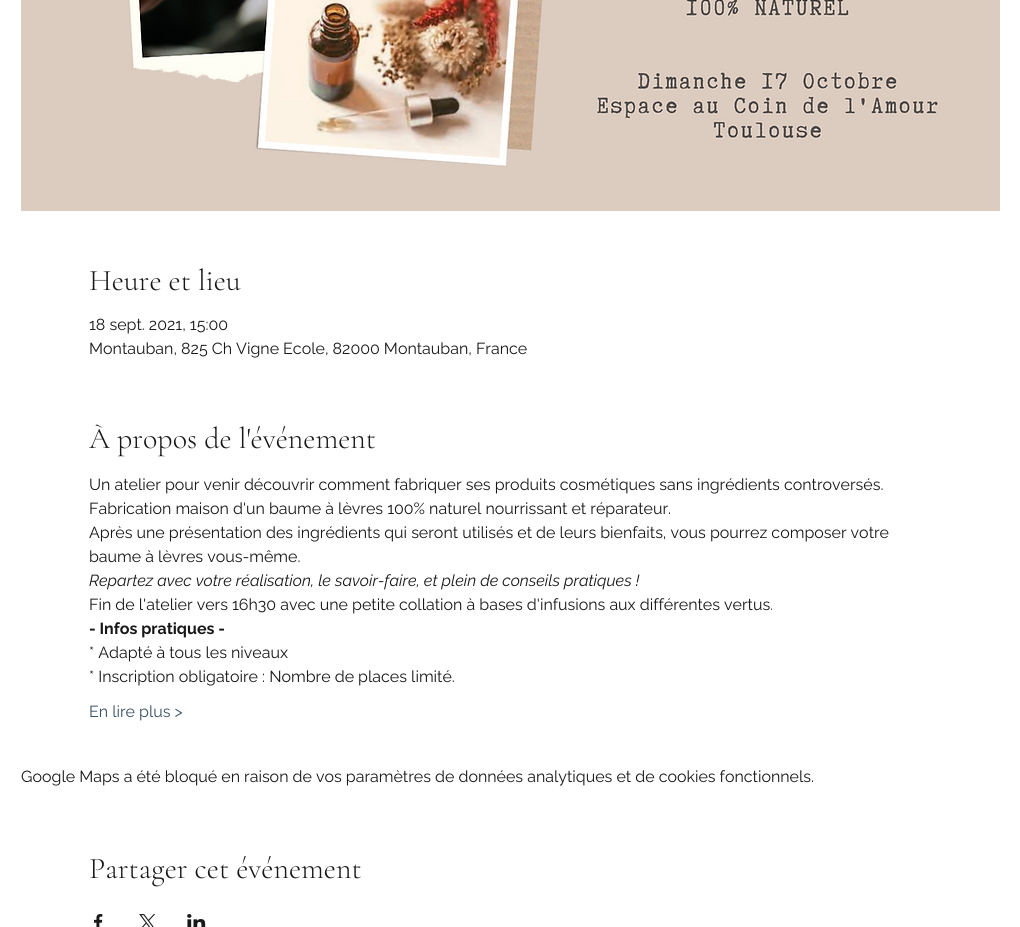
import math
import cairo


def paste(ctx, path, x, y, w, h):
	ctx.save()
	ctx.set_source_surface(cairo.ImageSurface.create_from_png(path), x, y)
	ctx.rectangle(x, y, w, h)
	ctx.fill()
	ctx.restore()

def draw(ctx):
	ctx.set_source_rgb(1, 1, 1)
	ctx.paint()
	paste(ctx, 'media/1.png', 21, 0, 979, 211)
	ctx.select_font_face('Cormorant Garamond Light')
	ctx.set_font_size(30)
	ctx.set_source_rgb(0.094, 0.094, 0.094)
	ctx.move_to(89, 290)
	ctx.show_text('Heure et lieu')
	ctx.select_font_face('Raleway')
	ctx.set_font_size(16)
	ctx.move_to(89, 330)
	ctx.show_text('18 sept. 2021, 15:00')
	ctx.move_to(89, 354)
	ctx.show_text('Montauban, 825 Ch Vigne Ecole, 82000 Montauban, France')
	ctx.select_font_face('Cormorant Garamond Light')
	ctx.set_font_size(30)
	ctx.move_to(89, 448)
	ctx.show_text('À propos de l\'événement')
	ctx.select_font_face('Raleway')
	ctx.set_font_size(16)
	for x, y, s in [
		(89, 490, 'Un atelier pour venir découvrir comment fabriquer ses produits cosmétiques sans ingrédients controversés.'),
		(89, 514, 'Fabrication maison d\'un baume à lèvres 100% naturel nourrissant et réparateur.'),
		(89, 538, 'Après une présentation des ingrédients qui seront utilisés et de leurs bienfaits, vous pourrez composer votre'),
		(89, 562, 'baume à lèvres vous-même.'),
	]:
		ctx.move_to(x, y)
		ctx.show_text(s)
	ctx.select_font_face('Raleway', cairo.FONT_SLANT_ITALIC)
	ctx.move_to(89, 586)
	ctx.show_text('Repartez avec votre réalisation, le savoir-faire, et plein de conseils pratiques !')
	ctx.select_font_face('Raleway')
	ctx.move_to(89, 610)
	ctx.show_text('Fin de l\'atelier vers 16h30 avec une petite collation à bases d\'infusions aux différentes vertus.')
	ctx.select_font_face('Raleway', cairo.FONT_SLANT_NORMAL, cairo.FONT_WEIGHT_BOLD)
	ctx.move_to(89, 634)
	ctx.show_text('- Infos pratiques -')
	ctx.select_font_face('Raleway')
	ctx.move_to(89, 658)
	ctx.show_text('* Adapté à tous les niveaux')
	ctx.move_to(89, 682)
	ctx.show_text('* Inscription obligatoire : Nombre de places limité.')
	ctx.set_source_rgb(0.227, 0.318, 0.388)
	ctx.move_to(89, 717)
	ctx.show_text('En lire plus >')
	ctx.set_source_rgb(0.094, 0.094, 0.094)
	ctx.move_to(21, 782)
	ctx.show_text('Google Maps a été bloqué en raison de vos paramètres de données analytiques et de cookies fonctionnels.')
	ctx.select_font_face('Cormorant Garamond Light')
	ctx.set_font_size(30)
	ctx.move_to(89, 878)
	ctx.show_text('Partager cet événement')
	paste(ctx, 'media/2.png', 94, 914, 9, 13)
	paste(ctx, 'media/3.png', 139, 914, 17, 13)
	paste(ctx, 'media/4.png', 187, 914, 19, 13)


surface = cairo.ImageSurface(cairo.FORMAT_RGB24, 1020, 927)
ctx = cairo.Context(surface)
options = cairo.FontOptions()
options.set_hint_metrics(cairo.HINT_METRICS_OFF)
options.set_hint_style(cairo.HINT_STYLE_NONE)
ctx.set_font_options(options)
ctx.set_miter_limit(4)
draw(ctx)
surface.write_to_png('image.png')
